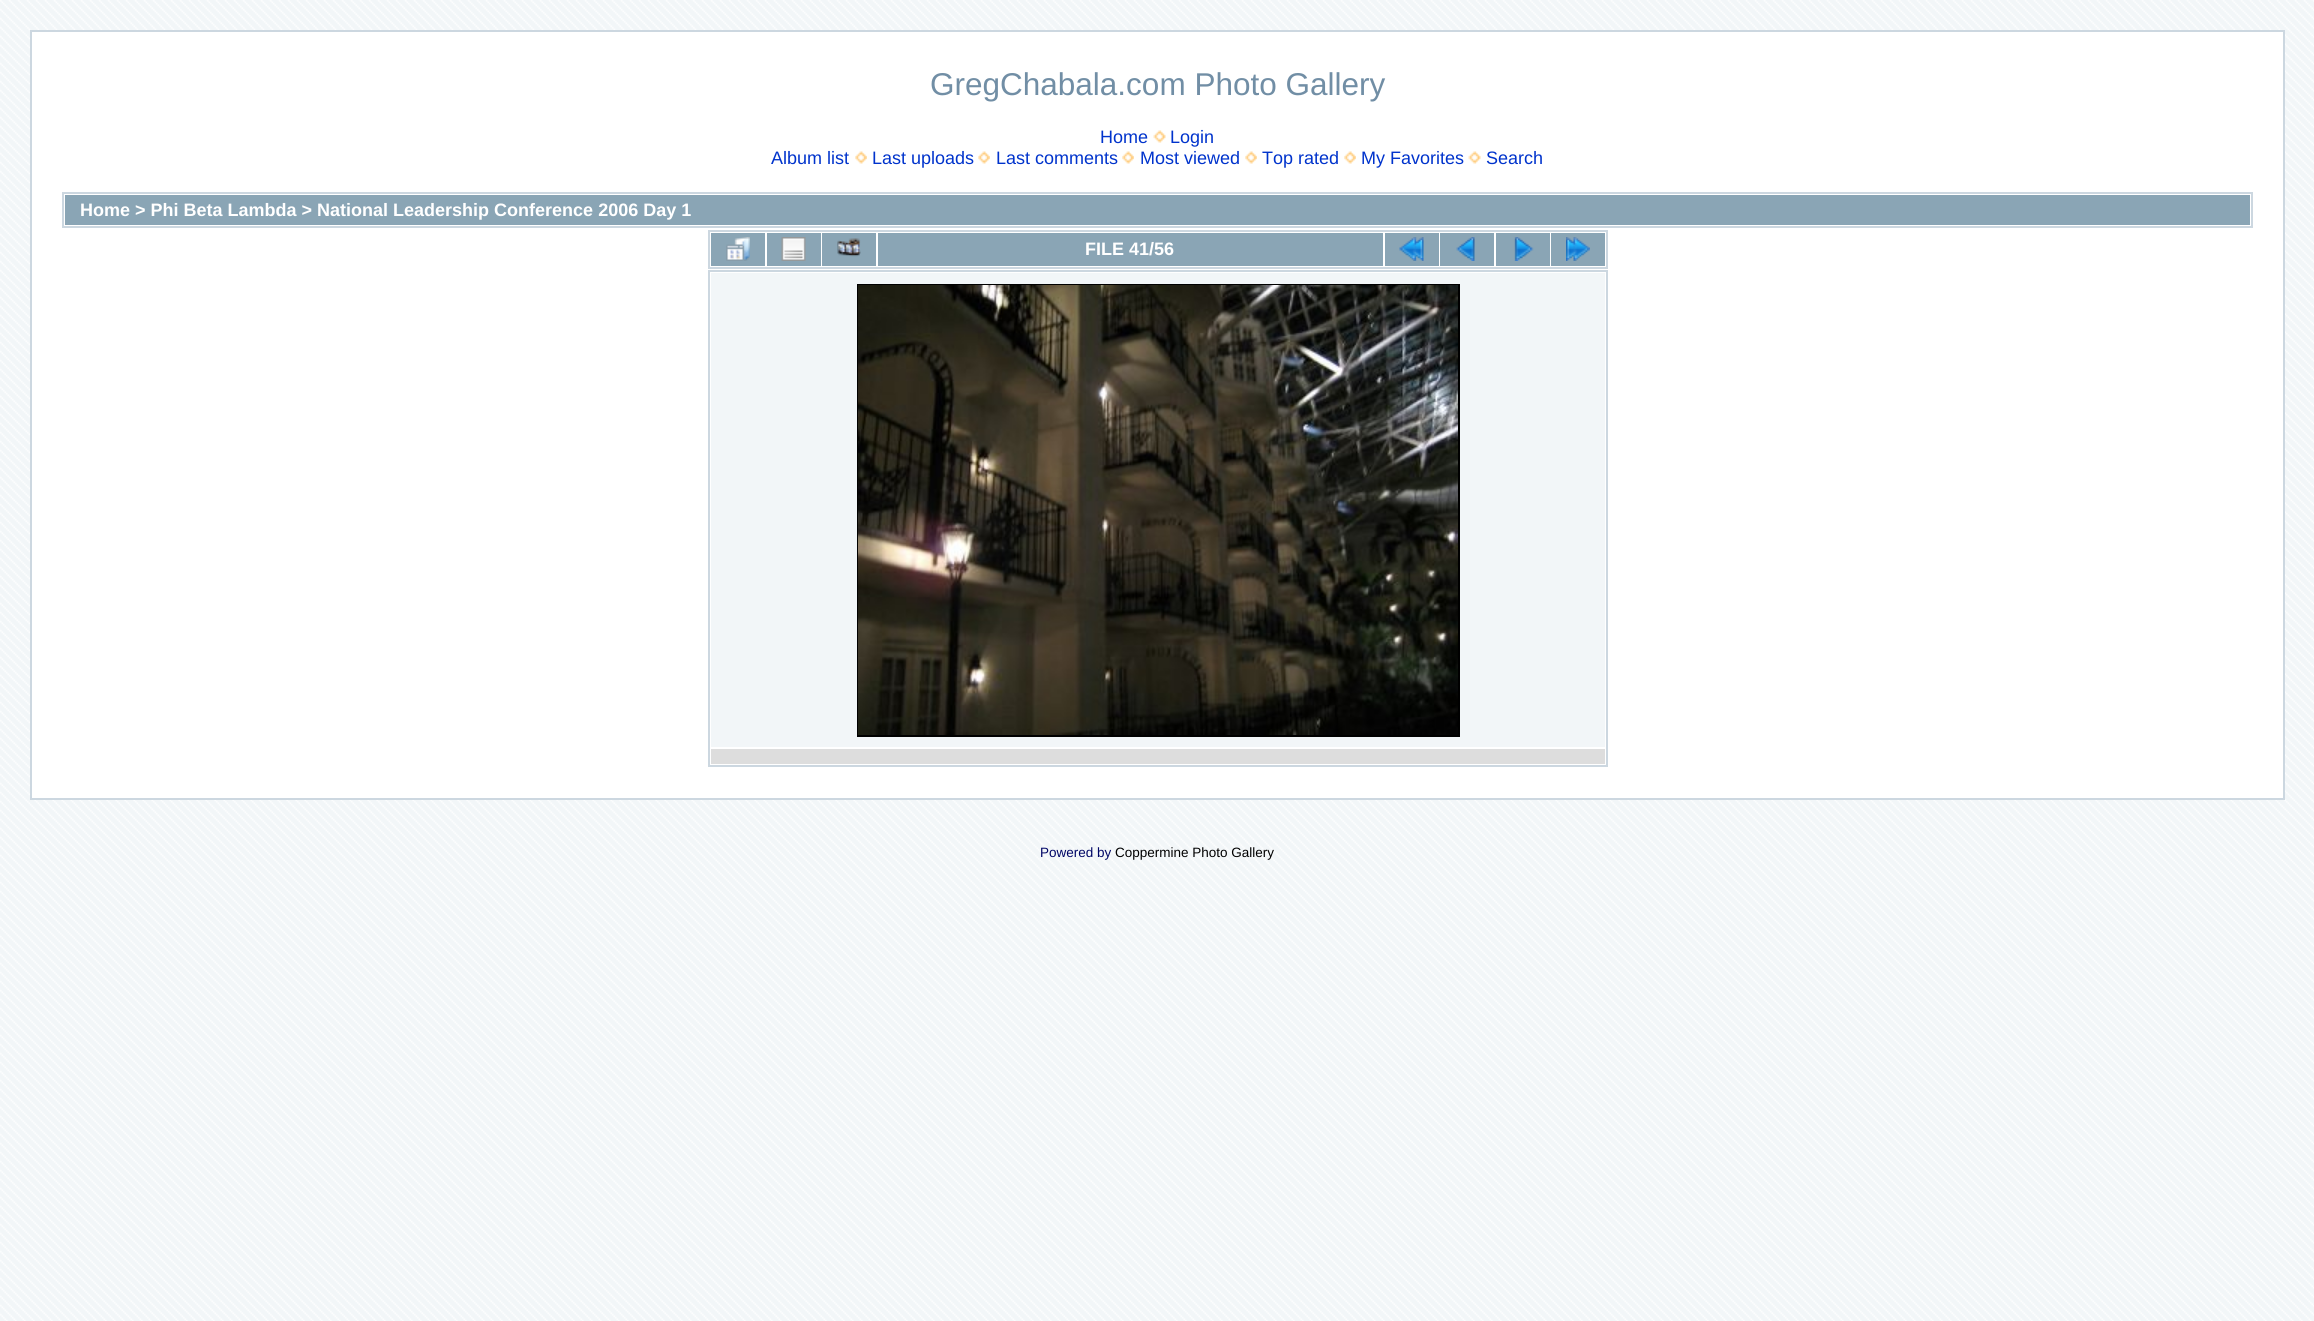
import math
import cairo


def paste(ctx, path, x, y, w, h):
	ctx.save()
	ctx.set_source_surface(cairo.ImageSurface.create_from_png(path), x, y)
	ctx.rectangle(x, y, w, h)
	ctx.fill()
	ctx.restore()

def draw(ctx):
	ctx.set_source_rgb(0.949, 0.961, 0.969)
	ctx.paint()
	paste(ctx, 'media/1.png', 0, 0, 2314, 1321)
	ctx.set_source_rgb(1, 1, 1)
	ctx.rectangle(31, 31, 2253, 768)
	ctx.fill_preserve()
	ctx.set_source_rgb(0.8, 0.843, 0.878)
	ctx.stroke()
	ctx.select_font_face('Liberation Sans')
	ctx.set_font_size(31.5)
	ctx.set_source_rgb(0.443, 0.557, 0.647)
	ctx.move_to(930, 95)
	ctx.show_text('GregChabala.com Photo Gallery')
	ctx.set_font_size(18)
	ctx.set_source_rgb(0, 0.2, 0.8)
	ctx.move_to(1100, 143)
	ctx.show_text('Home')
	paste(ctx, 'media/2.png', 1153, 130, 13, 13)
	ctx.move_to(1170, 143)
	ctx.show_text('Login')
	ctx.move_to(771, 164)
	ctx.show_text('Album list')
	paste(ctx, 'media/3.png', 855, 151, 12, 13)
	ctx.move_to(872, 164)
	ctx.show_text('Last uploads')
	paste(ctx, 'media/3.png', 978, 151, 12, 13)
	ctx.move_to(996, 164)
	ctx.show_text('Last comments')
	paste(ctx, 'media/4.png', 1122, 151, 12, 13)
	ctx.move_to(1140, 164)
	ctx.show_text('Most viewed')
	paste(ctx, 'media/4.png', 1245, 151, 12, 13)
	ctx.move_to(1262, 164)
	ctx.show_text('Top rated')
	paste(ctx, 'media/4.png', 1344, 151, 12, 13)
	ctx.move_to(1361, 164)
	ctx.show_text('My Favorites')
	paste(ctx, 'media/2.png', 1468, 151, 13, 13)
	ctx.move_to(1486, 164)
	ctx.show_text('Search')
	ctx.rectangle(63, 193, 2189, 34)
	ctx.set_source_rgb(0.8, 0.843, 0.878)
	ctx.stroke()
	ctx.set_source_rgb(0.541, 0.647, 0.71)
	ctx.rectangle(65, 195, 2185, 30)
	ctx.fill()
	ctx.select_font_face('Liberation Sans', cairo.FONT_SLANT_NORMAL, cairo.FONT_WEIGHT_BOLD)
	ctx.set_source_rgb(1, 1, 1)
	ctx.move_to(80, 216)
	ctx.show_text('Home > Phi Beta Lambda > National Leadership Conference 2006 Day 1')
	ctx.rectangle(709, 231, 898, 37)
	ctx.set_source_rgb(0.8, 0.843, 0.878)
	ctx.stroke()
	ctx.set_source_rgb(0.541, 0.647, 0.71)
	ctx.rectangle(711, 233, 54, 33)
	ctx.fill()
	paste(ctx, 'media/5.png', 726, 237, 24, 24)
	ctx.rectangle(767, 233, 54, 33)
	ctx.fill()
	paste(ctx, 'media/6.png', 781, 237, 25, 24)
	ctx.rectangle(822, 233, 54, 33)
	ctx.fill()
	paste(ctx, 'media/7.png', 837, 238, 24, 19)
	ctx.rectangle(878, 233, 505, 33)
	ctx.fill()
	ctx.set_source_rgb(1, 1, 1)
	ctx.move_to(1085, 255)
	ctx.show_text('FILE 41/56')
	ctx.set_source_rgb(0.541, 0.647, 0.71)
	ctx.rectangle(1385, 233, 54, 33)
	ctx.fill()
	paste(ctx, 'media/8.png', 1399, 237, 25, 24)
	ctx.rectangle(1440, 233, 54, 33)
	ctx.fill()
	paste(ctx, 'media/9.png', 1456, 237, 19, 24)
	ctx.rectangle(1496, 233, 54, 33)
	ctx.fill()
	paste(ctx, 'media/10.png', 1514, 237, 20, 24)
	ctx.rectangle(1551, 233, 54, 33)
	ctx.fill()
	paste(ctx, 'media/11.png', 1566, 237, 24, 24)
	ctx.rectangle(709, 271, 898, 495)
	ctx.set_source_rgb(0.8, 0.843, 0.878)
	ctx.stroke()
	ctx.set_source_rgb(0.949, 0.961, 0.969)
	ctx.rectangle(711, 273, 894, 474)
	ctx.fill()
	ctx.rectangle(858, 285, 601, 451)
	ctx.set_source_rgb(0, 0, 0)
	ctx.stroke()
	paste(ctx, 'media/12.png', 858, 285, 600, 450)
	ctx.set_source_rgb(0.867, 0.867, 0.867)
	ctx.rectangle(711, 749, 894, 15)
	ctx.fill()
	ctx.select_font_face('Liberation Sans')
	ctx.set_font_size(13.5)
	ctx.set_source_rgb(0, 0.024, 0.4)
	ctx.move_to(1040, 857)
	ctx.show_text('Powered by')
	ctx.set_source_rgb(0, 0, 0)
	ctx.move_to(1115, 857)
	ctx.show_text('Coppermine Photo Gallery')


surface = cairo.ImageSurface(cairo.FORMAT_RGB24, 2314, 1321)
ctx = cairo.Context(surface)
options = cairo.FontOptions()
options.set_hint_metrics(cairo.HINT_METRICS_OFF)
options.set_hint_style(cairo.HINT_STYLE_NONE)
ctx.set_font_options(options)
ctx.set_miter_limit(4)
draw(ctx)
surface.write_to_png('image.png')
